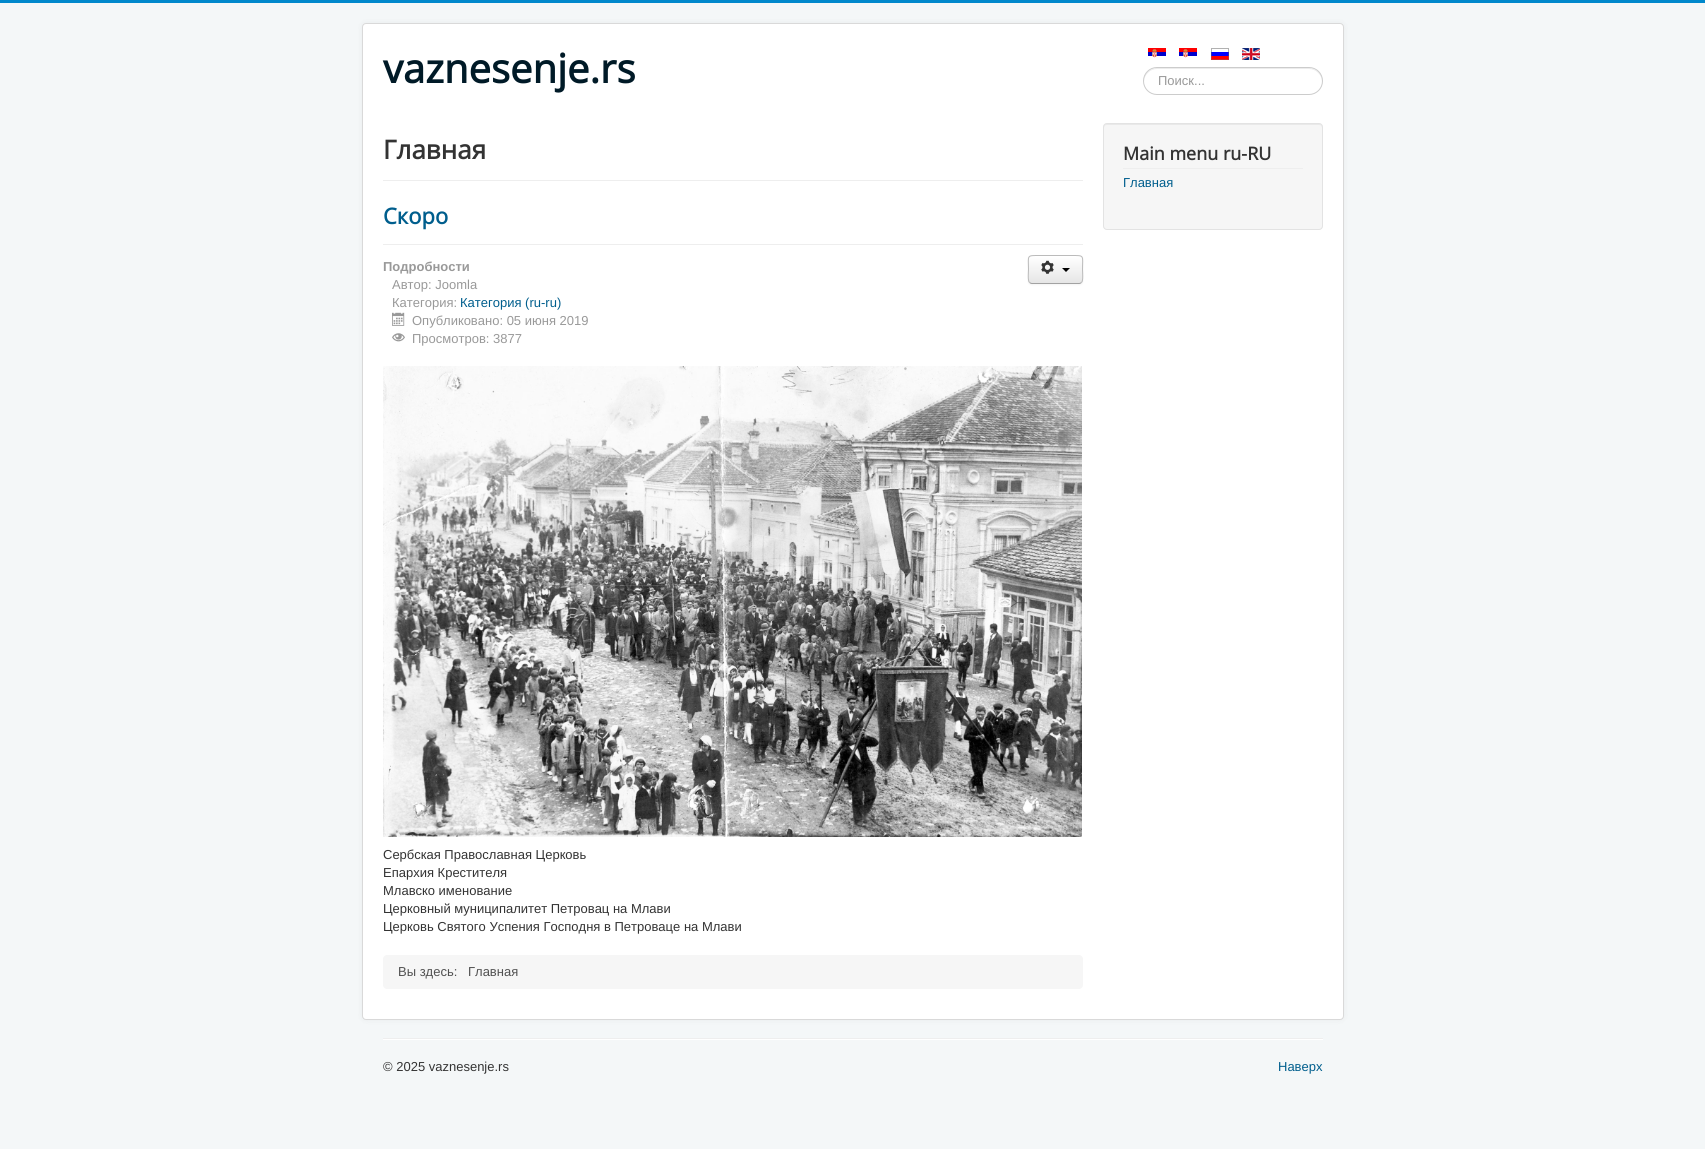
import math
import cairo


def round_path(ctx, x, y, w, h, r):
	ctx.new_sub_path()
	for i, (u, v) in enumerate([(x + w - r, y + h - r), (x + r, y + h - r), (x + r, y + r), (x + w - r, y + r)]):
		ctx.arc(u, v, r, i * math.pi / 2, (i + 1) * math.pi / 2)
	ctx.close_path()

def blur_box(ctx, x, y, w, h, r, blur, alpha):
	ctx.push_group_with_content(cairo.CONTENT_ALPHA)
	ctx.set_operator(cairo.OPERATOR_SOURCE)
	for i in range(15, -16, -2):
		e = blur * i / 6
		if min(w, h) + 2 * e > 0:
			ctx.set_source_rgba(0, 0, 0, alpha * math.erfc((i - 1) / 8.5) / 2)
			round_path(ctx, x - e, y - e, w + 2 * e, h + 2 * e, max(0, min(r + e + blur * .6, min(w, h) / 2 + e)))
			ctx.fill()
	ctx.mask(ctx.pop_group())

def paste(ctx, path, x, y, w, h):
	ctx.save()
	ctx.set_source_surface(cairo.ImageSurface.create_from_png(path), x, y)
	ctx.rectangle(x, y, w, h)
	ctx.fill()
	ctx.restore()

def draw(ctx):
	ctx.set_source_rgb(0.957, 0.965, 0.969)
	ctx.paint()
	ctx.set_source_rgb(0, 0.533, 0.8)
	ctx.rectangle(0, 0, 1705, 3)
	ctx.fill()
	ctx.set_source_rgb(0, 0, 0)
	blur_box(ctx, 362, 23, 982, 997, 4, 3, 0.05)
	ctx.set_source_rgb(1, 1, 1)
	round_path(ctx, 362, 23, 982, 997, 4)
	ctx.fill()
	round_path(ctx, 362.5, 23.5, 981, 996, 3.5)
	ctx.set_source_rgba(0, 0, 0, 0.15)
	ctx.set_line_width(1)
	ctx.stroke()
	ctx.select_font_face('Open Sans', cairo.FONT_SLANT_NORMAL, cairo.FONT_WEIGHT_BOLD)
	ctx.set_font_size(40)
	ctx.set_source_rgb(0, 0.102, 0.153)
	ctx.move_to(383, 83)
	ctx.show_text('vaznesenje.rs')
	paste(ctx, 'media/1.png', 1148, 48, 18, 10)
	paste(ctx, 'media/1.png', 1179, 48, 18, 10)
	paste(ctx, 'media/2.png', 1211, 48, 18, 12)
	paste(ctx, 'media/3.png', 1242, 48, 18, 12)
	ctx.set_source_rgb(0.925, 0.925, 0.925)
	ctx.new_path()
	ctx.move_to(1157, 69)
	ctx.line_to(1309, 69)
	ctx.curve_to(1316, 69, 1322, 75, 1322, 82)
	ctx.curve_to(1323, 62, 1293, 68, 1284, 68)
	ctx.line_to(1182, 68)
	ctx.curve_to(1173, 68, 1143, 62, 1144, 82)
	ctx.curve_to(1144, 75, 1150, 69, 1157, 69)
	ctx.close_path()
	ctx.fill()
	round_path(ctx, 1143.5, 67.5, 179, 27, 13.5)
	ctx.set_source_rgb(0.8, 0.8, 0.8)
	ctx.stroke()
	ctx.select_font_face('Liberation Sans')
	ctx.set_font_size(13)
	ctx.set_source_rgb(0.6, 0.6, 0.6)
	ctx.move_to(1158, 85)
	ctx.show_text('Поиск...')
	ctx.set_source_rgb(0.933, 0.933, 0.933)
	ctx.rectangle(383, 180, 700, 1)
	ctx.fill()
	ctx.select_font_face('Open Sans', cairo.FONT_SLANT_NORMAL, cairo.FONT_WEIGHT_BOLD)
	ctx.set_font_size(26)
	ctx.set_source_rgb(0.2, 0.2, 0.2)
	ctx.move_to(383, 159)
	ctx.show_text('Главная')
	ctx.set_source_rgb(0.933, 0.933, 0.933)
	ctx.rectangle(383, 244, 700, 1)
	ctx.fill()
	ctx.set_font_size(22)
	ctx.set_source_rgb(0, 0.369, 0.553)
	ctx.move_to(383, 224)
	ctx.show_text('Скоро')
	ctx.select_font_face('Liberation Sans', cairo.FONT_SLANT_NORMAL, cairo.FONT_WEIGHT_BOLD)
	ctx.set_font_size(13)
	ctx.set_source_rgb(0.6, 0.6, 0.6)
	ctx.move_to(383, 271)
	ctx.show_text('Подробности')
	ctx.select_font_face('Liberation Sans')
	ctx.move_to(392, 289)
	ctx.show_text('Автор: Joomla')
	ctx.move_to(392, 307)
	ctx.show_text('Категория:')
	ctx.set_source_rgb(0, 0.369, 0.553)
	ctx.move_to(460, 307)
	ctx.show_text('Категория (ru-ru)')
	paste(ctx, 'media/4.png', 392, 312, 13, 14)
	ctx.set_source_rgb(0.6, 0.6, 0.6)
	ctx.move_to(412, 325)
	ctx.show_text('Опубликовано: 05 июня 2019')
	paste(ctx, 'media/5.png', 392, 333, 13, 9)
	ctx.move_to(412, 343)
	ctx.show_text('Просмотров: 3877')
	ctx.set_source_rgb(0, 0, 0)
	blur_box(ctx, 1028, 256, 55, 29, 4, 1, 0.05)
	ctx.set_source_rgb(0.961, 0.961, 0.961)
	round_path(ctx, 1028, 255, 55, 29, 4)
	ctx.fill()
	ctx.save()
	round_path(ctx, 1028, 255, 55, 29, 4)
	ctx.clip()
	gradient = cairo.LinearGradient(1056, 256, 1056, 283)
	gradient.add_color_stop_rgba(0, 1, 1, 1, 1)
	gradient.add_color_stop_rgba(1, 0.902, 0.902, 0.902, 1)
	ctx.set_source(gradient)
	ctx.rectangle(1028, 256, 55, 27)
	ctx.fill()
	ctx.restore()
	ctx.set_source_rgb(1, 1, 1)
	ctx.new_path()
	ctx.move_to(1032, 257)
	ctx.line_to(1079, 257)
	ctx.curve_to(1081, 257, 1082, 258, 1082, 260)
	ctx.curve_to(1082, 254, 1076, 256, 1071, 256)
	ctx.line_to(1040, 256)
	ctx.curve_to(1035, 256, 1029, 254, 1029, 260)
	ctx.curve_to(1029, 258, 1030, 257, 1032, 257)
	ctx.close_path()
	ctx.fill()
	ctx.new_path()
	ctx.move_to(1081.5, 282.5)
	ctx.curve_to(1081, 283, 1080, 283.5, 1079, 283.5)
	ctx.line_to(1032, 283.5)
	ctx.curve_to(1031, 283.5, 1030, 283, 1029.5, 282.5)
	ctx.set_source_rgb(0.635, 0.635, 0.635)
	ctx.stroke()
	ctx.new_path()
	ctx.move_to(1029.5, 282.5)
	ctx.curve_to(1027.5, 280.5, 1028.5, 272, 1028.5, 269.5)
	ctx.curve_to(1028.5, 255, 1026, 255.5, 1040, 255.5)
	ctx.line_to(1071, 255.5)
	ctx.curve_to(1085, 255.5, 1082.5, 255, 1082.5, 269.5)
	ctx.curve_to(1082.5, 272, 1083.5, 280.5, 1081.5, 282.5)
	ctx.set_source_rgb(0.733, 0.733, 0.733)
	ctx.stroke()
	paste(ctx, 'media/6.png', 1041, 260, 13, 14)
	ctx.set_source_rgb(0, 0, 0)
	ctx.new_path()
	ctx.move_to(1062, 268)
	ctx.line_to(1070, 268)
	ctx.line_to(1066, 272)
	ctx.close_path()
	ctx.fill()
	paste(ctx, 'media/7.png', 383, 366, 699, 471)
	ctx.set_source_rgb(0.2, 0.2, 0.2)
	for x, y, s in [
		(383, 859, 'Сербская Православная Церковь'),
		(383, 877, 'Епархия Крестителя'),
		(383, 895, 'Млавско именование'),
		(383, 913, 'Церковный муниципалитет Петровац на Млави'),
		(383, 931, 'Церковь Святого Успения Господня в Петроваце на Млави'),
	]:
		ctx.move_to(x, y)
		ctx.show_text(s)
	ctx.set_source_rgb(0.961, 0.961, 0.961)
	round_path(ctx, 383, 955, 700, 34, 4)
	ctx.fill()
	ctx.set_source_rgb(0.318, 0.318, 0.318)
	ctx.move_to(398, 976)
	ctx.show_text('Вы здесь:')
	ctx.move_to(468, 976)
	ctx.show_text('Главная')
	ctx.set_source_rgb(0.961, 0.961, 0.961)
	round_path(ctx, 1103, 123, 220, 107, 4)
	ctx.fill()
	ctx.set_source_rgb(0.914, 0.914, 0.914)
	ctx.new_path()
	ctx.move_to(1107, 125)
	ctx.line_to(1319, 125)
	ctx.curve_to(1321, 125, 1322, 126, 1322, 128)
	ctx.line_to(1322, 127)
	ctx.curve_to(1322, 125, 1321, 124, 1319, 124)
	ctx.line_to(1107, 124)
	ctx.curve_to(1105, 124, 1104, 125, 1104, 127)
	ctx.line_to(1104, 128)
	ctx.curve_to(1104, 126, 1105, 125, 1107, 125)
	ctx.close_path()
	ctx.fill()
	round_path(ctx, 1103.5, 123.5, 219, 106, 3.5)
	ctx.set_source_rgb(0.89, 0.89, 0.89)
	ctx.stroke()
	ctx.set_source_rgb(0.933, 0.933, 0.933)
	ctx.rectangle(1123, 168, 180, 1)
	ctx.fill()
	ctx.select_font_face('Open Sans', cairo.FONT_SLANT_NORMAL, cairo.FONT_WEIGHT_BOLD)
	ctx.set_font_size(18)
	ctx.set_source_rgb(0.2, 0.2, 0.2)
	ctx.move_to(1123, 160)
	ctx.show_text('Main menu ru-RU')
	ctx.select_font_face('Liberation Sans')
	ctx.set_font_size(13)
	ctx.set_source_rgb(0, 0.369, 0.553)
	ctx.move_to(1123, 187)
	ctx.show_text('Главная')
	ctx.set_source_rgb(0.933, 0.933, 0.933)
	ctx.rectangle(383, 1038, 940, 1)
	ctx.fill()
	ctx.set_source_rgb(1, 1, 1)
	ctx.rectangle(383, 1039, 940, 1)
	ctx.fill()
	ctx.set_source_rgb(0.2, 0.2, 0.2)
	ctx.move_to(383, 1071)
	ctx.show_text('© 2025 vaznesenje.rs')
	ctx.set_source_rgb(0, 0.369, 0.553)
	ctx.move_to(1278, 1071)
	ctx.show_text('Наверх')


surface = cairo.ImageSurface(cairo.FORMAT_RGB24, 1705, 1149)
ctx = cairo.Context(surface)
options = cairo.FontOptions()
options.set_hint_metrics(cairo.HINT_METRICS_OFF)
options.set_hint_style(cairo.HINT_STYLE_NONE)
ctx.set_font_options(options)
ctx.set_miter_limit(4)
draw(ctx)
surface.write_to_png('image.png')
